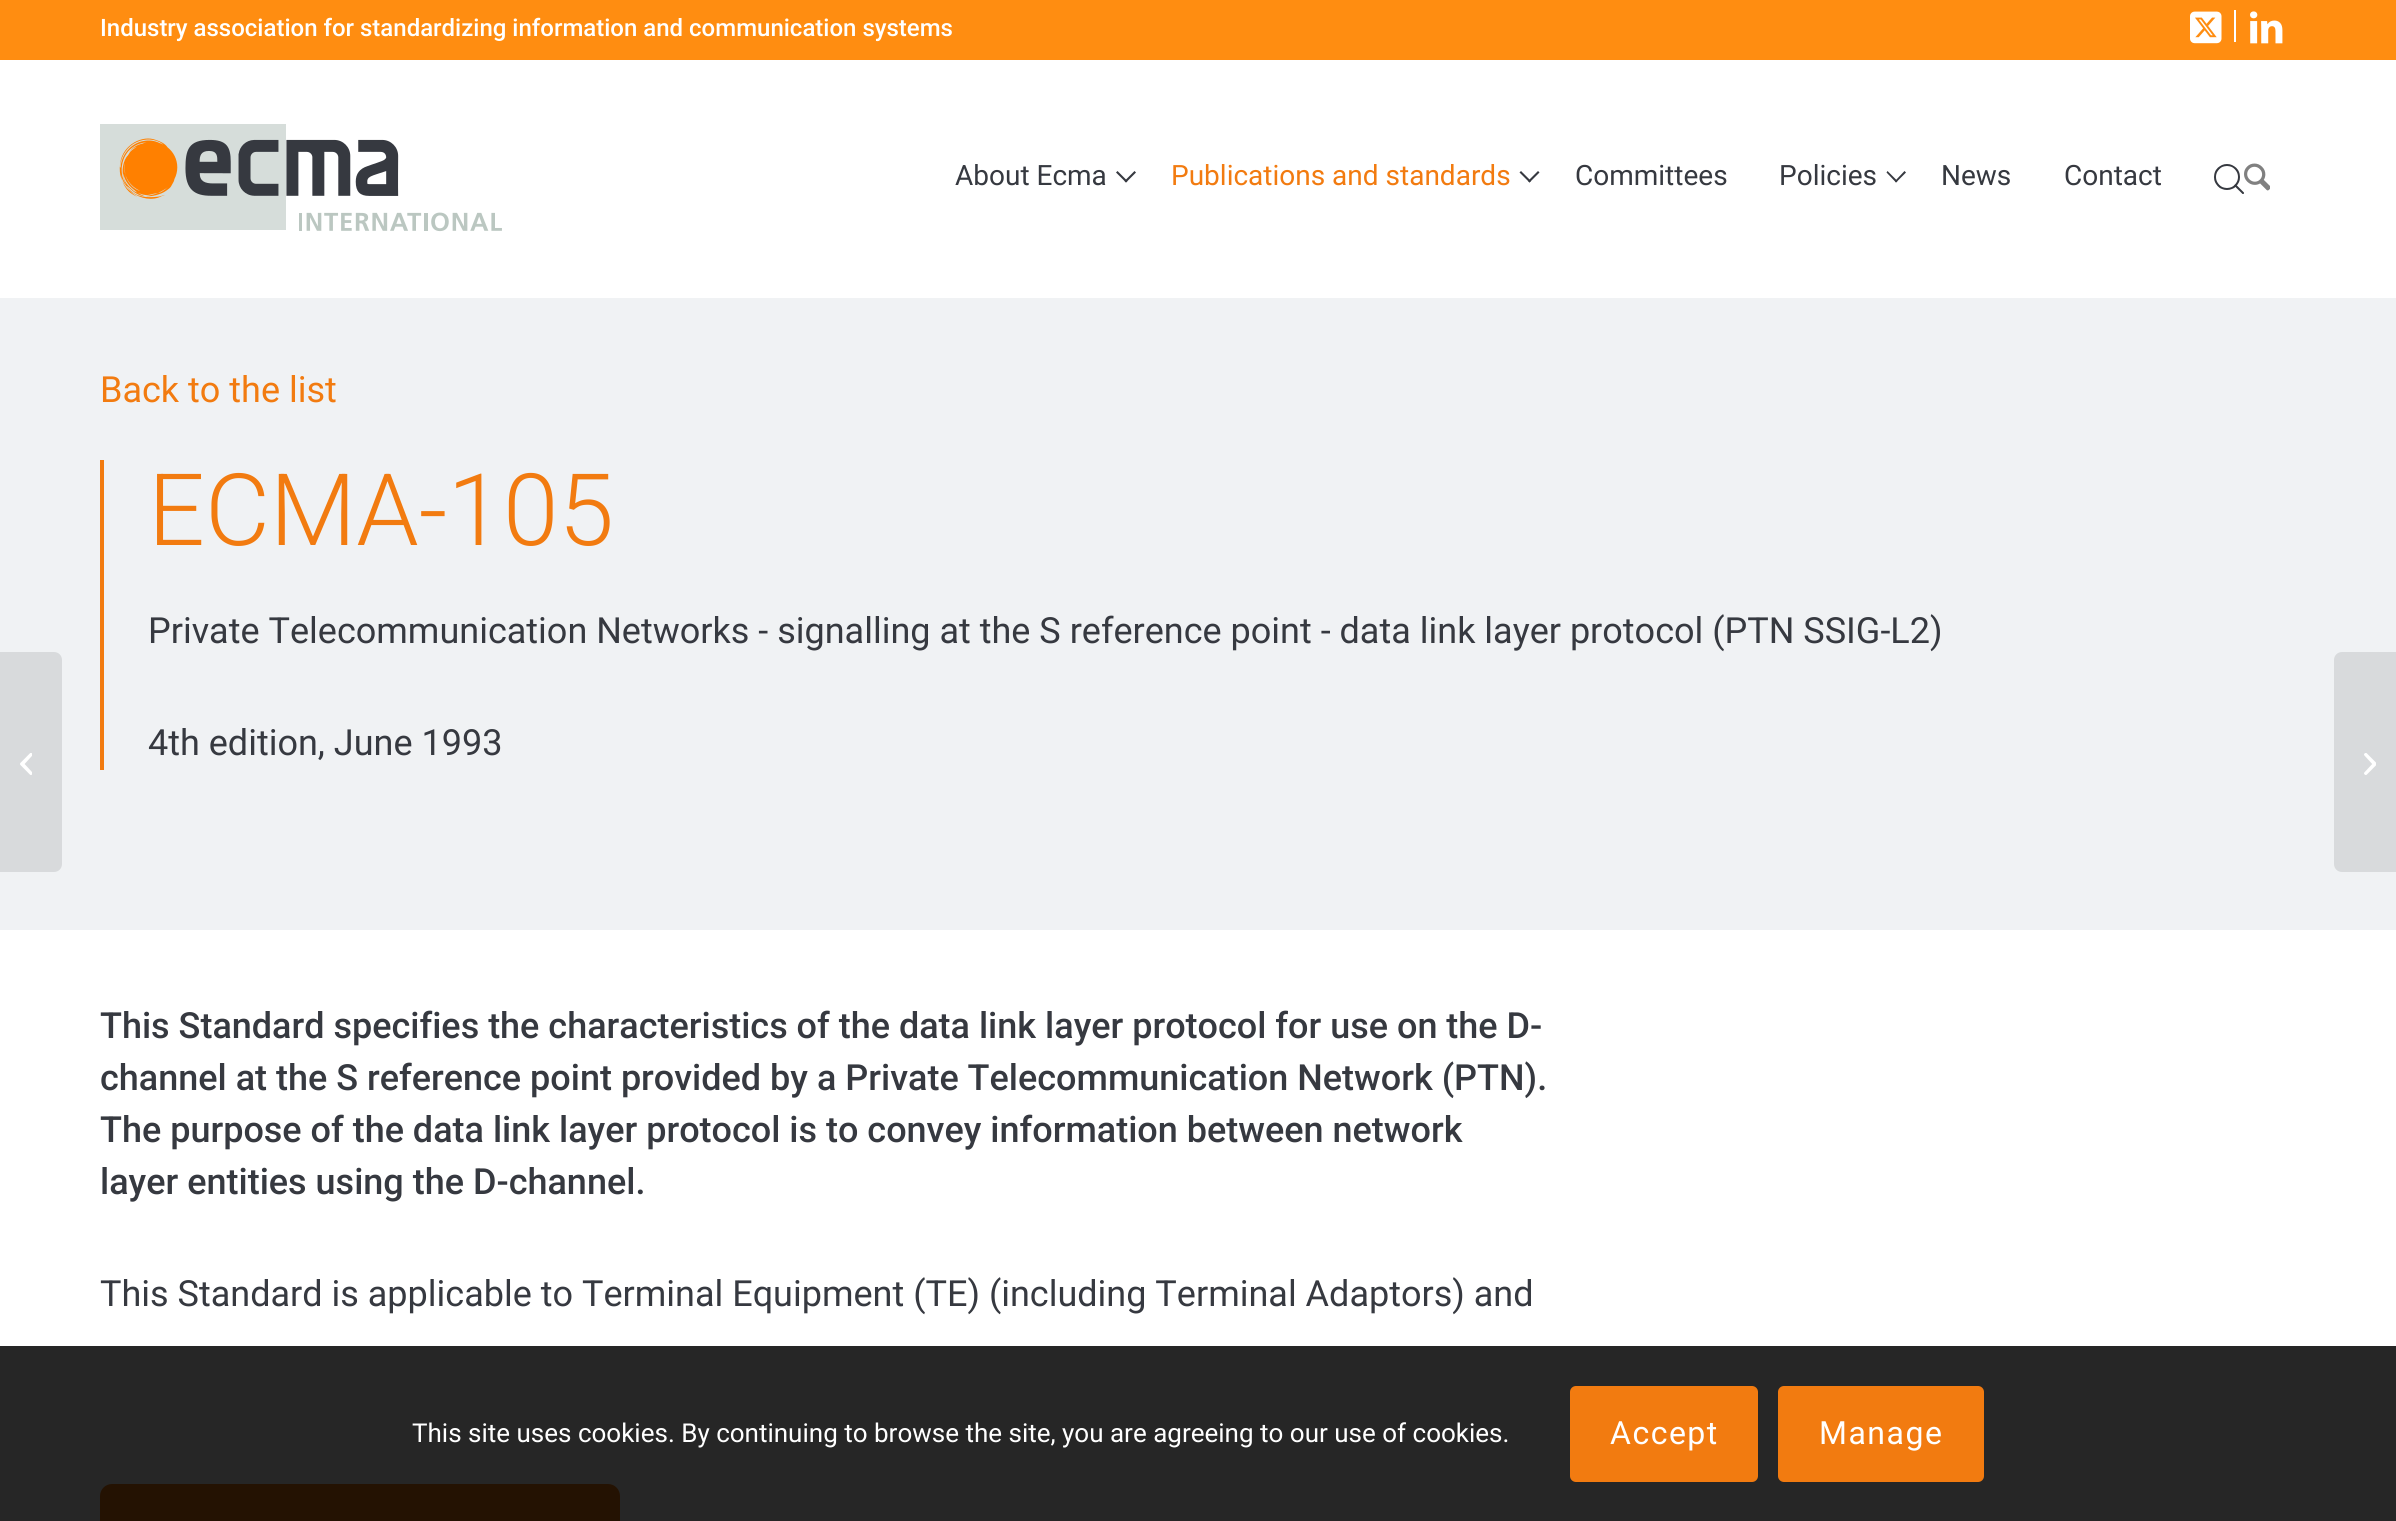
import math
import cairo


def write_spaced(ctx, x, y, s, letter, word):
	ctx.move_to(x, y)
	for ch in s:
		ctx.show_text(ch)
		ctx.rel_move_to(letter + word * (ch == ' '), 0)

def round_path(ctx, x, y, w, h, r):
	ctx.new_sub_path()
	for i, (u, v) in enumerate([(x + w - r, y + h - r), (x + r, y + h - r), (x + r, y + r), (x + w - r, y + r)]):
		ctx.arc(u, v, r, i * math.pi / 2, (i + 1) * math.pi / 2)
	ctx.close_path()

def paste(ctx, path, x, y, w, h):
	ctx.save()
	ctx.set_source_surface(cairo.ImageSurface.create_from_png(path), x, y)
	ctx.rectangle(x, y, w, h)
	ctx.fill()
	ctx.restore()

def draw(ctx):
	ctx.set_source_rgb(1, 1, 1)
	ctx.paint()
	ctx.set_source_rgb(1, 0.553, 0.067)
	ctx.rectangle(0, 0, 2396, 60)
	ctx.fill()
	ctx.select_font_face('Roboto Medium')
	ctx.set_font_size(24)
	ctx.set_source_rgb(1, 1, 1)
	ctx.move_to(100, 36)
	ctx.show_text('Industry association for standardizing information and communication systems')
	paste(ctx, 'media/1.png', 2190, 11, 32, 33)
	ctx.rectangle(2234, 10, 2, 32)
	ctx.fill()
	paste(ctx, 'media/2.png', 2250, 11, 33, 33)
	paste(ctx, 'media/3.png', 100, 124, 402, 108)
	ctx.select_font_face('Roboto')
	ctx.set_font_size(28)
	ctx.set_source_rgb(0.212, 0.224, 0.251)
	ctx.move_to(955, 185)
	ctx.show_text('About Ecma')
	ctx.new_path()
	ctx.move_to(1136, 172.5)
	ctx.line_to(1126, 182.5)
	ctx.line_to(1124.5, 181)
	ctx.line_to(1134.5, 171)
	ctx.close_path()
	ctx.fill()
	ctx.new_path()
	ctx.move_to(1127.5, 181)
	ctx.line_to(1126, 182.5)
	ctx.line_to(1116, 172.5)
	ctx.line_to(1117.5, 171)
	ctx.close_path()
	ctx.fill()
	ctx.set_source_rgb(0.949, 0.482, 0.063)
	ctx.move_to(1171, 185)
	ctx.show_text('Publications and standards')
	ctx.set_source_rgb(0.212, 0.224, 0.251)
	ctx.new_path()
	ctx.move_to(1539.5, 172.5)
	ctx.line_to(1529.5, 182.5)
	ctx.line_to(1528, 181)
	ctx.line_to(1538, 171)
	ctx.close_path()
	ctx.fill()
	ctx.new_path()
	ctx.move_to(1531, 181)
	ctx.line_to(1529.5, 182.5)
	ctx.line_to(1519.5, 172.5)
	ctx.line_to(1521, 171)
	ctx.close_path()
	ctx.fill()
	ctx.move_to(1575, 185)
	ctx.show_text('Committees')
	ctx.move_to(1779, 185)
	ctx.show_text('Policies')
	ctx.new_path()
	ctx.move_to(1906, 172.5)
	ctx.line_to(1896, 182.5)
	ctx.line_to(1895, 181)
	ctx.line_to(1904.5, 171)
	ctx.close_path()
	ctx.fill()
	ctx.new_path()
	ctx.move_to(1897.5, 181)
	ctx.line_to(1896, 182.5)
	ctx.line_to(1886.5, 172.5)
	ctx.line_to(1887.5, 171)
	ctx.close_path()
	ctx.fill()
	ctx.move_to(1941, 185)
	ctx.show_text('News')
	ctx.move_to(2064, 185)
	ctx.show_text('Contact')
	paste(ctx, 'media/4.png', 2214, 164, 30, 30)
	paste(ctx, 'media/5.png', 2244, 163, 26, 28)
	ctx.set_source_rgb(0.941, 0.949, 0.957)
	ctx.rectangle(0, 298, 2396, 632)
	ctx.fill()
	ctx.set_source_rgb(0.847, 0.855, 0.863)
	ctx.new_path()
	ctx.move_to(0, 652)
	ctx.line_to(54, 652)
	ctx.curve_to(58.5, 652, 62, 655.5, 62, 660)
	ctx.line_to(62, 864)
	ctx.curve_to(62, 868.5, 58.5, 872, 54, 872)
	ctx.line_to(0, 872)
	ctx.close_path()
	ctx.fill()
	paste(ctx, 'media/6.png', 20, 753, 12, 22)
	ctx.set_font_size(36)
	ctx.set_source_rgb(0.949, 0.482, 0.063)
	ctx.move_to(100, 402)
	ctx.show_text('Back to the list')
	ctx.rectangle(100, 460, 4, 310)
	ctx.fill()
	ctx.select_font_face('Roboto Light')
	ctx.set_font_size(100)
	ctx.move_to(148, 545)
	ctx.show_text('ECMA-105')
	ctx.select_font_face('Roboto')
	ctx.set_font_size(36)
	ctx.set_source_rgb(0.212, 0.224, 0.251)
	ctx.move_to(148, 643)
	ctx.show_text('Private Telecommunication Networks - signalling at the S reference point - data link layer protocol (PTN SSIG-L2)')
	ctx.move_to(148, 755)
	ctx.show_text('4th edition, June 1993')
	ctx.select_font_face('Roboto Medium')
	for x, y, s in [
		(100, 1038, 'This Standard specifies the characteristics of the data link layer protocol for use on the D-'),
		(100, 1090, 'channel at the S reference point provided by a Private Telecommunication Network (PTN).'),
		(100, 1142, 'The purpose of the data link layer protocol is to convey information between network'),
		(100, 1194, 'layer entities using the D-channel.'),
	]:
		ctx.move_to(x, y)
		ctx.show_text(s)
	ctx.select_font_face('Roboto')
	ctx.move_to(100, 1306)
	ctx.show_text('This Standard is applicable to Terminal Equipment (TE) (including Terminal Adaptors) and')
	ctx.set_source_rgb(0.949, 0.482, 0.063)
	round_path(ctx, 102, 1486, 516, 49, 10)
	ctx.fill_preserve()
	ctx.set_line_width(4)
	ctx.stroke()
	ctx.set_source_rgb(0.847, 0.855, 0.863)
	ctx.new_path()
	ctx.move_to(2342, 652)
	ctx.line_to(2396, 652)
	ctx.line_to(2396, 872)
	ctx.line_to(2342, 872)
	ctx.curve_to(2337.5, 872, 2334, 868.5, 2334, 864)
	ctx.line_to(2334, 660)
	ctx.curve_to(2334, 655.5, 2337.5, 652, 2342, 652)
	ctx.close_path()
	ctx.fill()
	paste(ctx, 'media/7.png', 2364, 753, 12, 22)
	ctx.set_source_rgba(0, 0, 0, 0.85)
	ctx.rectangle(0, 1346, 2396, 175)
	ctx.fill()
	ctx.set_font_size(26)
	ctx.set_source_rgb(1, 1, 1)
	ctx.move_to(412, 1442)
	ctx.show_text('This site uses cookies. By continuing to browse the site, you are agreeing to our use of cookies.')
	ctx.set_source_rgb(0.949, 0.482, 0.063)
	round_path(ctx, 1570, 1386, 188, 96, 6)
	ctx.fill()
	ctx.set_font_size(32)
	ctx.set_source_rgb(1, 1, 1)
	write_spaced(ctx, 1610, 1444, 'Accept', 1.5, 0)
	ctx.set_source_rgb(0.949, 0.482, 0.063)
	round_path(ctx, 1778, 1386, 206, 96, 6)
	ctx.fill()
	ctx.set_source_rgb(1, 1, 1)
	write_spaced(ctx, 1819, 1444, 'Manage', 1.5, 0)


surface = cairo.ImageSurface(cairo.FORMAT_RGB24, 2396, 1521)
ctx = cairo.Context(surface)
options = cairo.FontOptions()
options.set_hint_metrics(cairo.HINT_METRICS_OFF)
options.set_hint_style(cairo.HINT_STYLE_NONE)
ctx.set_font_options(options)
ctx.set_miter_limit(4)
draw(ctx)
surface.write_to_png('image.png')
